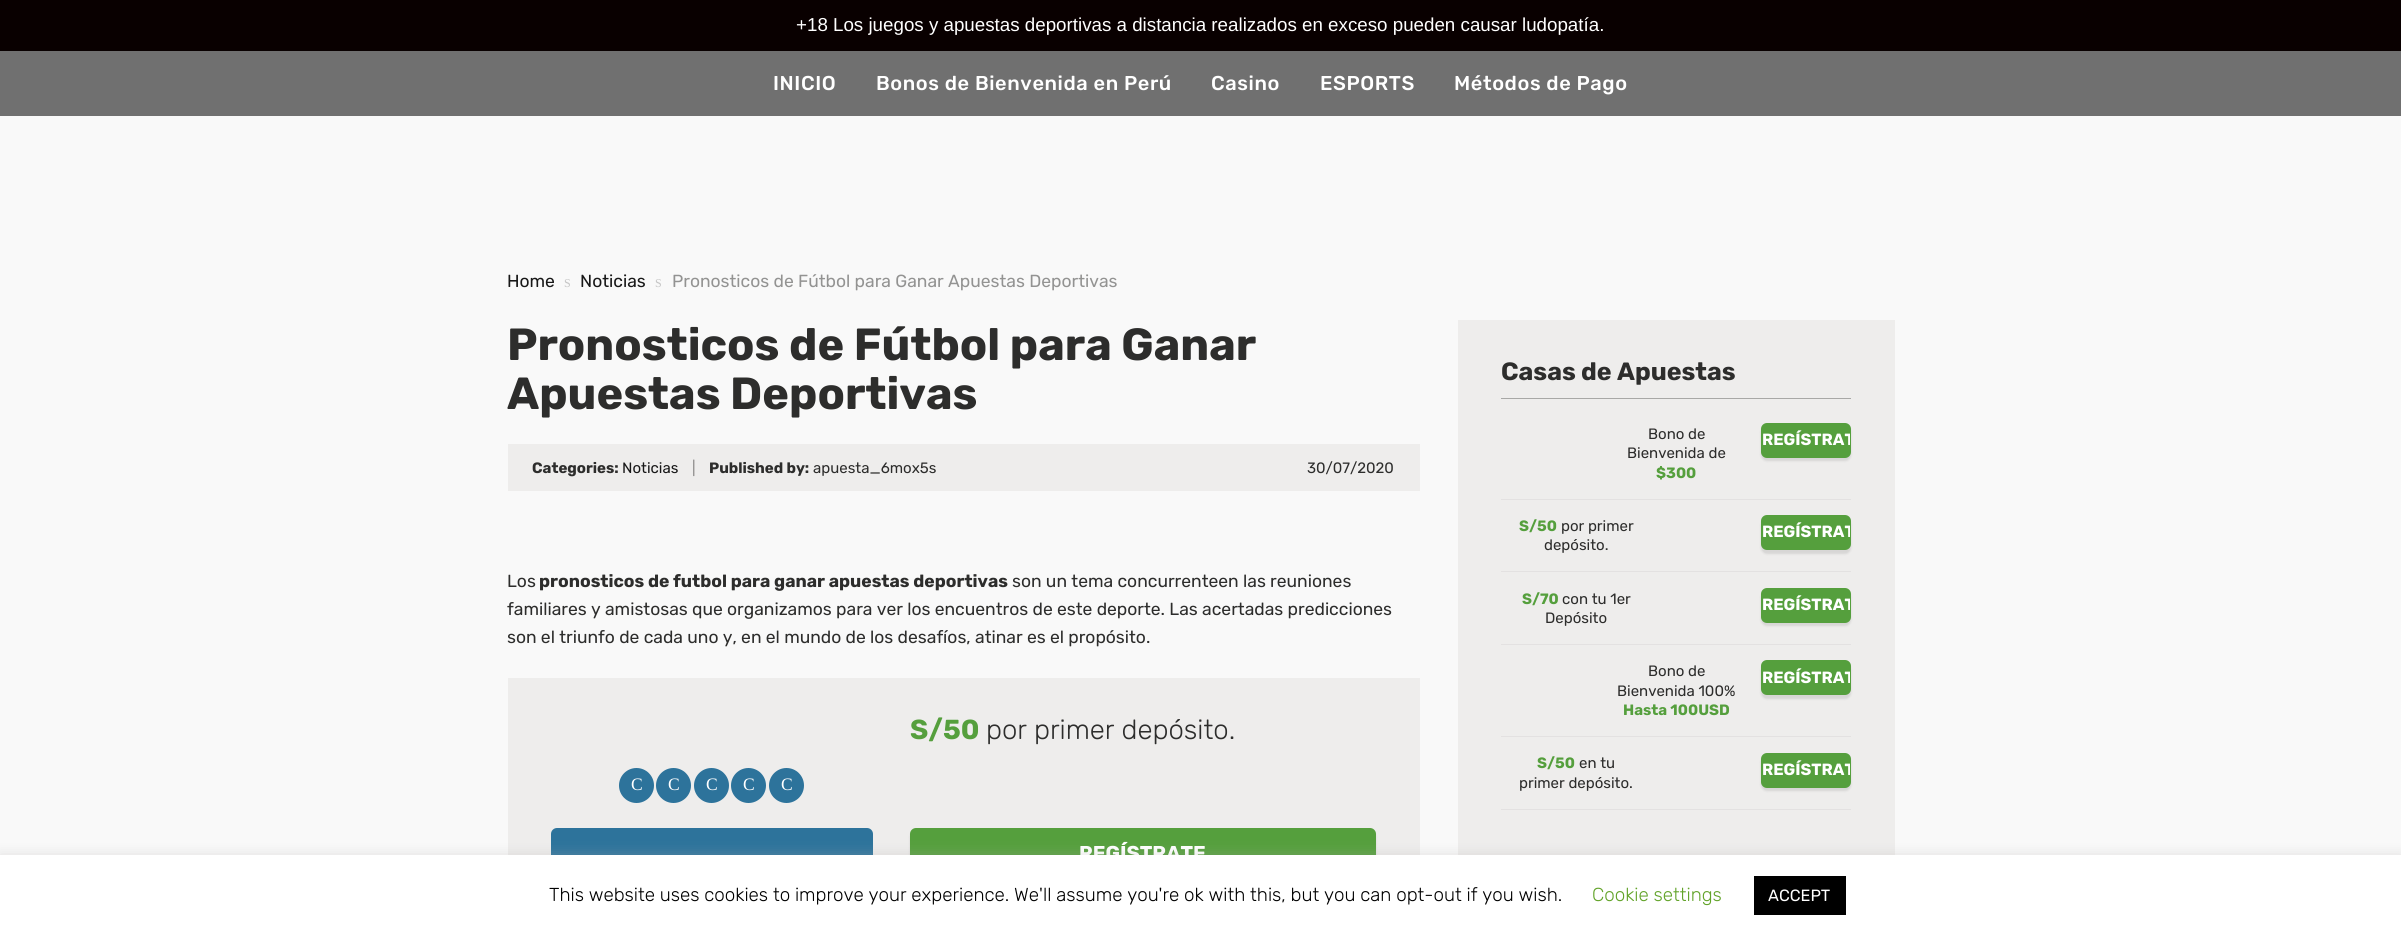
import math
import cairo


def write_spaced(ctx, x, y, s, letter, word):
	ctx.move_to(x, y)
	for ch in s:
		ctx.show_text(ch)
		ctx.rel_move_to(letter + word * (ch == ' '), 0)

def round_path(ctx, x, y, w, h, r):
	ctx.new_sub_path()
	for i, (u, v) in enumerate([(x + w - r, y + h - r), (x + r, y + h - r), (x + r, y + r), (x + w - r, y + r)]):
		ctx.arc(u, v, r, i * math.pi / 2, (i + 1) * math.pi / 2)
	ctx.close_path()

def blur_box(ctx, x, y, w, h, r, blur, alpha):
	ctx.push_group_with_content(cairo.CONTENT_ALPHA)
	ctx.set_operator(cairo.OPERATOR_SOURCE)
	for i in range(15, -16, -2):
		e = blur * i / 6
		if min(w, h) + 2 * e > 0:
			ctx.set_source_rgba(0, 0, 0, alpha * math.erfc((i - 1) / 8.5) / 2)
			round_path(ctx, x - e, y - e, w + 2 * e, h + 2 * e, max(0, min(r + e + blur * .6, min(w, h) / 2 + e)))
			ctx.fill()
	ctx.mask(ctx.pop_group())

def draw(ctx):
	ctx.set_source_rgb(0.973, 0.973, 0.973)
	ctx.paint()
	ctx.set_source_rgb(0.039, 0, 0)
	ctx.rectangle(0, 0, 2401, 51)
	ctx.fill()
	ctx.select_font_face('Liberation Sans')
	ctx.set_font_size(18.75)
	ctx.set_source_rgb(1, 1, 1)
	ctx.move_to(796, 31)
	ctx.show_text('+18 Los juegos y apuestas deportivas a distancia realizados en exceso pueden causar ludopatía.')
	ctx.set_source_rgb(0.439, 0.439, 0.439)
	ctx.rectangle(0, 51, 2401, 65)
	ctx.fill()
	ctx.select_font_face('Rubik Medium')
	ctx.set_font_size(20)
	ctx.set_source_rgb(1, 1, 1)
	for x, y, s in [
		(773, 90, 'INICIO'),
		(876, 90, 'Bonos de Bienvenida en Perú'),
		(1211, 90, 'Casino'),
		(1320, 90, 'ESPORTS'),
		(1454, 90, 'Métodos de Pago'),
	]:
		write_spaced(ctx, x, y, s, 0.6, 0)
	ctx.select_font_face('Rubik')
	ctx.set_font_size(17.5)
	ctx.set_source_rgb(0.094, 0.094, 0.094)
	ctx.move_to(507, 287)
	ctx.show_text('Home')
	ctx.select_font_face('Liberation Serif')
	ctx.set_font_size(12)
	ctx.set_source_rgb(0.773, 0.773, 0.773)
	ctx.move_to(564, 287)
	ctx.show_text('S')
	ctx.select_font_face('Rubik')
	ctx.set_font_size(17.5)
	ctx.set_source_rgb(0.094, 0.094, 0.094)
	ctx.move_to(580, 287)
	ctx.show_text('Noticias')
	ctx.select_font_face('Liberation Serif')
	ctx.set_font_size(12)
	ctx.set_source_rgb(0.773, 0.773, 0.773)
	ctx.move_to(655, 287)
	ctx.show_text('S')
	ctx.select_font_face('Rubik')
	ctx.set_font_size(17.5)
	ctx.set_source_rgb(0.576, 0.576, 0.573)
	ctx.move_to(672, 287)
	ctx.show_text('Pronosticos de Fútbol para Ganar Apuestas Deportivas')
	ctx.select_font_face('Rubik', cairo.FONT_SLANT_NORMAL, cairo.FONT_WEIGHT_BOLD)
	ctx.set_font_size(45)
	ctx.set_source_rgb(0.176, 0.176, 0.173)
	ctx.move_to(507, 360)
	ctx.show_text('Pronosticos de Fútbol para Ganar')
	ctx.move_to(507, 409)
	ctx.show_text('Apuestas Deportivas')
	ctx.set_source_rgb(0.933, 0.929, 0.922)
	ctx.rectangle(508, 444, 912, 47)
	ctx.fill()
	ctx.set_font_size(15)
	ctx.set_source_rgb(0.176, 0.176, 0.173)
	ctx.move_to(532, 473)
	ctx.show_text('Categories:')
	ctx.select_font_face('Rubik')
	ctx.set_source_rgb(0.094, 0.094, 0.094)
	ctx.move_to(622, 473)
	ctx.show_text('Noticias')
	ctx.set_source_rgb(0.557, 0.553, 0.549)
	ctx.move_to(692, 473)
	ctx.show_text('|')
	ctx.select_font_face('Rubik', cairo.FONT_SLANT_NORMAL, cairo.FONT_WEIGHT_BOLD)
	ctx.set_source_rgb(0.176, 0.176, 0.173)
	ctx.move_to(709, 473)
	ctx.show_text('Published by:')
	ctx.select_font_face('Rubik')
	ctx.move_to(813, 473)
	ctx.show_text('apuesta_6mox5s')
	ctx.move_to(1307, 473)
	ctx.show_text('30/07/2020')
	ctx.set_font_size(17.5)
	ctx.move_to(507, 587)
	ctx.show_text('Los')
	ctx.select_font_face('Rubik', cairo.FONT_SLANT_NORMAL, cairo.FONT_WEIGHT_BOLD)
	ctx.move_to(539, 587)
	ctx.show_text('pronosticos de futbol para ganar apuestas deportivas')
	ctx.select_font_face('Rubik')
	for x, y, s in [
		(1012, 587, 'son un tema concurrenteen las reuniones'),
		(507, 615, 'familiares y amistosas que organizamos para ver los encuentros de este deporte. Las acertadas predicciones'),
		(507, 643, 'son el triunfo de cada uno y, en el mundo de los desafíos, atinar es el propósito.'),
	]:
		ctx.move_to(x, y)
		ctx.show_text(s)
	ctx.set_source_rgb(0.933, 0.929, 0.922)
	ctx.rectangle(508, 678, 912, 177)
	ctx.fill()
	ctx.select_font_face('Rubik', cairo.FONT_SLANT_NORMAL, cairo.FONT_WEIGHT_BOLD)
	ctx.set_font_size(27.5)
	ctx.set_source_rgb(0.333, 0.624, 0.239)
	ctx.move_to(910, 739)
	ctx.show_text('S/50')
	ctx.select_font_face('Rubik Light')
	ctx.set_source_rgb(0.176, 0.176, 0.173)
	ctx.move_to(986, 739)
	ctx.show_text('por primer depósito.')
	ctx.set_source_rgb(0.176, 0.451, 0.608)
	ctx.new_path()
	ctx.arc(636.5, 785.5, 17.5, 0, 2 * math.pi)
	ctx.fill()
	ctx.select_font_face('Liberation Serif')
	ctx.set_font_size(17.5)
	ctx.set_source_rgb(1, 1, 1)
	ctx.move_to(631, 790)
	ctx.show_text('C')
	ctx.set_source_rgb(0.176, 0.451, 0.608)
	ctx.new_path()
	ctx.arc(673.5, 785.5, 17.5, 0, 2 * math.pi)
	ctx.fill()
	ctx.set_source_rgb(1, 1, 1)
	ctx.move_to(668, 790)
	ctx.show_text('C')
	ctx.set_source_rgb(0.176, 0.451, 0.608)
	ctx.new_path()
	ctx.arc(711.5, 785.5, 17.5, 0, 2 * math.pi)
	ctx.fill()
	ctx.set_source_rgb(1, 1, 1)
	ctx.move_to(706, 790)
	ctx.show_text('C')
	ctx.set_source_rgb(0.176, 0.451, 0.608)
	ctx.new_path()
	ctx.arc(748.5, 785.5, 17.5, 0, 2 * math.pi)
	ctx.fill()
	ctx.set_source_rgb(1, 1, 1)
	ctx.move_to(743, 790)
	ctx.show_text('C')
	ctx.set_source_rgb(0.176, 0.451, 0.608)
	ctx.new_path()
	ctx.arc(786.5, 785.5, 17.5, 0, 2 * math.pi)
	ctx.fill()
	ctx.set_source_rgb(1, 1, 1)
	ctx.move_to(781, 790)
	ctx.show_text('C')
	ctx.set_source_rgb(0.176, 0.451, 0.608)
	round_path(ctx, 551, 828, 322, 52, 6)
	ctx.fill()
	ctx.set_source_rgb(0, 0, 0)
	blur_box(ctx, 910, 831, 466, 53, 6, 1, 0.1)
	ctx.set_source_rgb(0.333, 0.624, 0.239)
	round_path(ctx, 910, 828, 466, 52, 6)
	ctx.fill()
	ctx.select_font_face('Rubik', cairo.FONT_SLANT_NORMAL, cairo.FONT_WEIGHT_BOLD)
	ctx.set_font_size(20)
	ctx.set_source_rgb(1, 1, 1)
	ctx.move_to(1079, 860)
	ctx.show_text('REGÍSTRATE')
	ctx.set_source_rgb(0.933, 0.929, 0.922)
	ctx.rectangle(1458, 320, 437, 535)
	ctx.fill()
	ctx.set_source_rgb(0.659, 0.659, 0.651)
	ctx.rectangle(1501, 398, 350, 1)
	ctx.fill()
	ctx.set_font_size(25)
	ctx.set_source_rgb(0.176, 0.176, 0.173)
	ctx.move_to(1501, 380)
	ctx.show_text('Casas de Apuestas')
	ctx.set_source_rgb(0.89, 0.882, 0.882)
	ctx.rectangle(1501, 499, 350, 1)
	ctx.fill()
	ctx.select_font_face('Rubik')
	ctx.set_font_size(15)
	ctx.set_source_rgb(0.176, 0.176, 0.173)
	ctx.move_to(1648, 439)
	ctx.show_text('Bono de')
	ctx.move_to(1627, 458)
	ctx.show_text('Bienvenida de')
	ctx.select_font_face('Rubik', cairo.FONT_SLANT_NORMAL, cairo.FONT_WEIGHT_BOLD)
	ctx.set_source_rgb(0.333, 0.624, 0.239)
	ctx.move_to(1656, 478)
	ctx.show_text('$300')
	ctx.set_source_rgb(0, 0, 0)
	blur_box(ctx, 1761, 426, 90, 35, 6, 1, 0.1)
	ctx.set_source_rgb(0.333, 0.624, 0.239)
	round_path(ctx, 1761, 423, 90, 35, 6)
	ctx.fill()
	ctx.save()
	round_path(ctx, 1763, 424, 87, 32, 5)
	ctx.clip()
	ctx.set_font_size(16.25)
	ctx.set_source_rgb(1, 1, 1)
	ctx.move_to(1762, 445)
	ctx.show_text('REGÍSTRAT')
	ctx.restore()
	ctx.set_source_rgb(0.89, 0.882, 0.882)
	ctx.rectangle(1501, 571, 350, 1)
	ctx.fill()
	ctx.set_source_rgb(0.333, 0.624, 0.239)
	ctx.move_to(1519, 531)
	ctx.show_text('S/50')
	ctx.select_font_face('Rubik')
	ctx.set_source_rgb(0.176, 0.176, 0.173)
	ctx.move_to(1561, 531)
	ctx.show_text('por primer')
	ctx.move_to(1544, 550)
	ctx.show_text('depósito.')
	ctx.set_source_rgb(0, 0, 0)
	blur_box(ctx, 1761, 519, 90, 35, 6, 1, 0.1)
	ctx.set_source_rgb(0.333, 0.624, 0.239)
	round_path(ctx, 1761, 515, 90, 35, 6)
	ctx.fill()
	ctx.save()
	round_path(ctx, 1763, 516, 87, 33, 5)
	ctx.clip()
	ctx.select_font_face('Rubik', cairo.FONT_SLANT_NORMAL, cairo.FONT_WEIGHT_BOLD)
	ctx.set_font_size(16.25)
	ctx.set_source_rgb(1, 1, 1)
	ctx.move_to(1762, 537)
	ctx.show_text('REGÍSTRAT')
	ctx.restore()
	ctx.set_source_rgb(0.89, 0.882, 0.882)
	ctx.rectangle(1501, 644, 350, 1)
	ctx.fill()
	ctx.select_font_face('Rubik', cairo.FONT_SLANT_NORMAL, cairo.FONT_WEIGHT_BOLD)
	ctx.set_source_rgb(0.333, 0.624, 0.239)
	ctx.move_to(1522, 604)
	ctx.show_text('S/70')
	ctx.select_font_face('Rubik')
	ctx.set_source_rgb(0.176, 0.176, 0.173)
	ctx.move_to(1562, 604)
	ctx.show_text('con tu 1er')
	ctx.move_to(1545, 623)
	ctx.show_text('Depósito')
	ctx.set_source_rgb(0, 0, 0)
	blur_box(ctx, 1761, 591, 90, 35, 6, 1, 0.1)
	ctx.set_source_rgb(0.333, 0.624, 0.239)
	round_path(ctx, 1761, 588, 90, 35, 6)
	ctx.fill()
	ctx.save()
	round_path(ctx, 1763, 589, 87, 32, 5)
	ctx.clip()
	ctx.select_font_face('Rubik', cairo.FONT_SLANT_NORMAL, cairo.FONT_WEIGHT_BOLD)
	ctx.set_font_size(16.25)
	ctx.set_source_rgb(1, 1, 1)
	ctx.move_to(1762, 610)
	ctx.show_text('REGÍSTRAT')
	ctx.restore()
	ctx.set_source_rgb(0.89, 0.882, 0.882)
	ctx.rectangle(1501, 736, 350, 1)
	ctx.fill()
	ctx.set_source_rgb(0.176, 0.176, 0.173)
	ctx.move_to(1648, 676)
	ctx.show_text('Bono de')
	ctx.move_to(1617, 696)
	ctx.show_text('Bienvenida 100%')
	ctx.select_font_face('Rubik', cairo.FONT_SLANT_NORMAL, cairo.FONT_WEIGHT_BOLD)
	ctx.set_source_rgb(0.333, 0.624, 0.239)
	ctx.move_to(1623, 715)
	ctx.show_text('Hasta 100USD')
	ctx.set_source_rgb(0, 0, 0)
	blur_box(ctx, 1761, 664, 90, 35, 6, 1, 0.1)
	ctx.set_source_rgb(0.333, 0.624, 0.239)
	round_path(ctx, 1761, 660, 90, 35, 6)
	ctx.fill()
	ctx.save()
	round_path(ctx, 1763, 661, 87, 33, 5)
	ctx.clip()
	ctx.set_font_size(16.25)
	ctx.set_source_rgb(1, 1, 1)
	ctx.move_to(1762, 683)
	ctx.show_text('REGÍSTRAT')
	ctx.restore()
	ctx.set_source_rgb(0.89, 0.882, 0.882)
	ctx.rectangle(1501, 809, 350, 1)
	ctx.fill()
	ctx.set_source_rgb(0.333, 0.624, 0.239)
	ctx.move_to(1537, 768)
	ctx.show_text('S/50')
	ctx.select_font_face('Rubik')
	ctx.set_source_rgb(0.176, 0.176, 0.173)
	ctx.move_to(1579, 768)
	ctx.show_text('en tu')
	ctx.move_to(1519, 788)
	ctx.show_text('primer depósito.')
	ctx.set_source_rgb(0, 0, 0)
	blur_box(ctx, 1761, 756, 90, 35, 6, 1, 0.1)
	ctx.set_source_rgb(0.333, 0.624, 0.239)
	round_path(ctx, 1761, 753, 90, 35, 6)
	ctx.fill()
	ctx.save()
	round_path(ctx, 1763, 754, 87, 32, 5)
	ctx.clip()
	ctx.select_font_face('Rubik', cairo.FONT_SLANT_NORMAL, cairo.FONT_WEIGHT_BOLD)
	ctx.set_font_size(16.25)
	ctx.set_source_rgb(1, 1, 1)
	ctx.move_to(1762, 775)
	ctx.show_text('REGÍSTRAT')
	ctx.restore()
	ctx.set_source_rgb(0.675, 0.671, 0.671)
	blur_box(ctx, 0, 854, 2401, 81, 0, 6, 0.3)
	ctx.set_source_rgb(1, 1, 1)
	ctx.rectangle(0, 855, 2401, 81)
	ctx.fill()
	ctx.select_font_face('Rubik Light')
	ctx.set_font_size(18.75)
	ctx.set_source_rgb(0, 0, 0)
	ctx.move_to(549, 901)
	ctx.show_text('This website uses cookies to improve your experience. We\'ll assume you\'re ok with this, but you can opt-out if you wish.')
	ctx.set_source_rgb(0.384, 0.639, 0.161)
	ctx.move_to(1592, 901)
	ctx.show_text('Cookie settings')
	ctx.set_source_rgb(0, 0, 0)
	ctx.rectangle(1754, 876, 92, 39)
	ctx.fill()
	ctx.select_font_face('Rubik')
	ctx.set_font_size(16.25)
	ctx.set_source_rgb(1, 1, 1)
	ctx.move_to(1768, 901)
	ctx.show_text('ACCEPT')


surface = cairo.ImageSurface(cairo.FORMAT_RGB24, 2401, 936)
ctx = cairo.Context(surface)
options = cairo.FontOptions()
options.set_hint_metrics(cairo.HINT_METRICS_OFF)
options.set_hint_style(cairo.HINT_STYLE_NONE)
ctx.set_font_options(options)
ctx.set_miter_limit(4)
draw(ctx)
surface.write_to_png('image.png')
